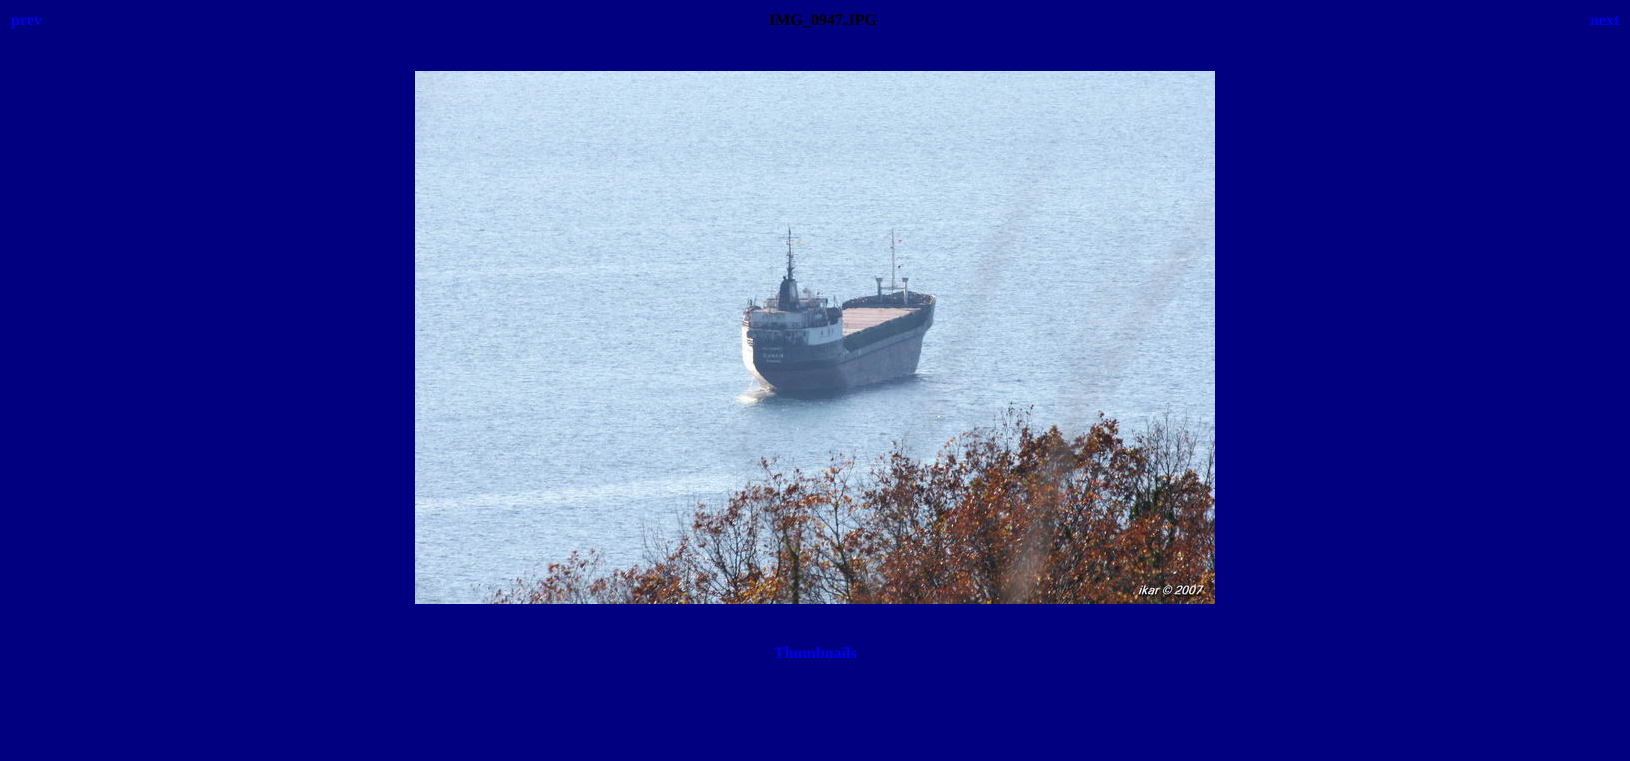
import math
import cairo


def paste(ctx, path, x, y, w, h):
	ctx.save()
	ctx.set_source_surface(cairo.ImageSurface.create_from_png(path), x, y)
	ctx.rectangle(x, y, w, h)
	ctx.fill()
	ctx.restore()

def draw(ctx):
	ctx.set_source_rgb(0, 0, 0.502)
	ctx.paint()
	ctx.select_font_face('Liberation Serif', cairo.FONT_SLANT_NORMAL, cairo.FONT_WEIGHT_BOLD)
	ctx.set_font_size(16)
	ctx.set_source_rgb(0, 0, 0.933)
	ctx.move_to(11, 25)
	ctx.show_text('prev')
	ctx.set_source_rgb(0, 0, 0)
	ctx.move_to(769, 25)
	ctx.show_text('IMG_0947.JPG')
	ctx.set_source_rgb(0, 0, 0.933)
	ctx.move_to(1590, 25)
	ctx.show_text('next')
	paste(ctx, 'media/1.png', 415, 71, 800, 533)
	ctx.move_to(774, 658)
	ctx.show_text('Thumbnails')


surface = cairo.ImageSurface(cairo.FORMAT_RGB24, 1630, 761)
ctx = cairo.Context(surface)
options = cairo.FontOptions()
options.set_hint_metrics(cairo.HINT_METRICS_OFF)
options.set_hint_style(cairo.HINT_STYLE_NONE)
ctx.set_font_options(options)
ctx.set_miter_limit(4)
draw(ctx)
surface.write_to_png('image.png')
